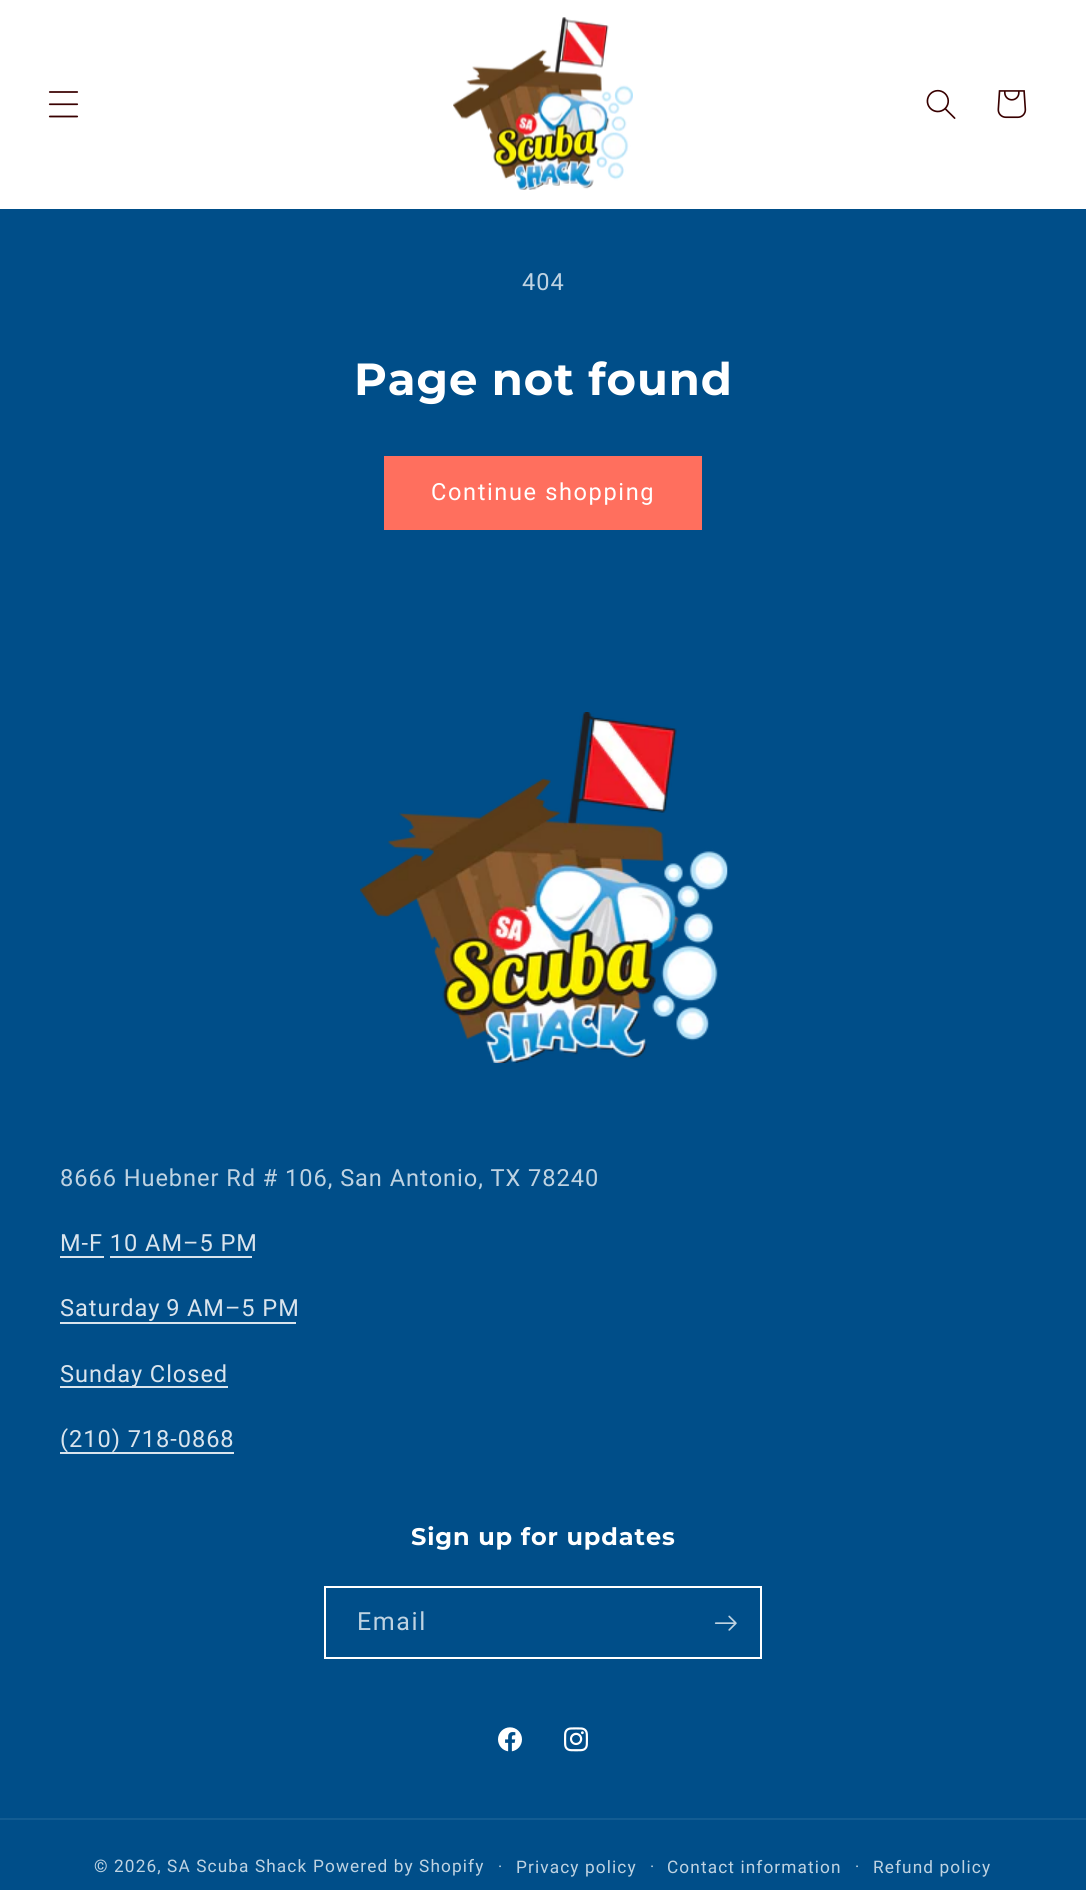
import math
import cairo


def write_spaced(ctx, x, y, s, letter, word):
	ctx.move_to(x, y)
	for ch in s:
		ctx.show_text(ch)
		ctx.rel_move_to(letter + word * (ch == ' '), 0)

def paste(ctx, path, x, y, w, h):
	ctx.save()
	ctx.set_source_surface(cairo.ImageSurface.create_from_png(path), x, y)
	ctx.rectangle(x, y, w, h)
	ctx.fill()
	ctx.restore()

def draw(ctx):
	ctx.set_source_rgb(0, 0.306, 0.537)
	ctx.paint()
	ctx.set_source_rgb(1, 1, 1)
	ctx.rectangle(0, 0, 1086, 209)
	ctx.fill()
	paste(ctx, 'media/1.png', 48, 91, 31, 27)
	paste(ctx, 'media/2.png', 453, 17, 180, 173)
	paste(ctx, 'media/3.png', 926, 89, 30, 30)
	paste(ctx, 'media/4.png', 997, 90, 30, 29)
	ctx.select_font_face('Roboto')
	ctx.set_font_size(23.6)
	ctx.set_source_rgb(0.749, 0.827, 0.886)
	write_spaced(ctx, 522, 290, '404', 0.95, 0)
	ctx.select_font_face('Montserrat', cairo.FONT_SLANT_NORMAL, cairo.FONT_WEIGHT_BOLD)
	ctx.set_font_size(45)
	ctx.set_source_rgb(1, 1, 1)
	write_spaced(ctx, 354, 395, 'Page not found', 0.9, 0)
	ctx.set_source_rgb(1, 0.435, 0.369)
	ctx.rectangle(384, 456, 318, 74)
	ctx.fill()
	ctx.select_font_face('Roboto')
	ctx.set_font_size(23.6)
	ctx.set_source_rgb(1, 1, 1)
	write_spaced(ctx, 431, 500, 'Continue shopping', 1.6, 0)
	paste(ctx, 'media/5.png', 360, 712, 368, 351)
	ctx.set_source_rgb(0.749, 0.827, 0.886)
	write_spaced(ctx, 60, 1186, '8666 Huebner Rd # 106, San Antonio, TX 78240', 0.95, 0)
	ctx.set_source_rgb(0.851, 0.894, 0.929)
	write_spaced(ctx, 60, 1251, 'M-F 10 AM–5 PM', 0.95, 0)
	ctx.rectangle(60, 1256, 44, 2)
	ctx.fill()
	ctx.rectangle(110, 1256, 142, 2)
	ctx.fill()
	write_spaced(ctx, 60, 1316, 'Saturday 9', 0.95, -1)
	ctx.rectangle(60, 1322, 236, 2)
	ctx.fill()
	write_spaced(ctx, 187, 1316, 'AM–5 PM', 0.95, 0)
	ctx.rectangle(60, 1386, 168, 2)
	ctx.fill()
	write_spaced(ctx, 60, 1382, 'Sunday Closed', 0.95, 0)
	ctx.rectangle(60, 1452, 174, 2)
	ctx.fill()
	write_spaced(ctx, 60, 1447, '(210) 718-0868', 0.95, 0)
	ctx.select_font_face('Montserrat', cairo.FONT_SLANT_NORMAL, cairo.FONT_WEIGHT_BOLD)
	ctx.set_font_size(24)
	ctx.set_source_rgb(1, 1, 1)
	write_spaced(ctx, 411, 1545, 'Sign up for updates', 0.9, 0)
	ctx.rectangle(325, 1587, 436, 71)
	ctx.stroke()
	ctx.select_font_face('Roboto')
	ctx.set_font_size(25)
	ctx.set_source_rgb(0.749, 0.827, 0.886)
	write_spaced(ctx, 357, 1630, 'Email', 1.6, 0)
	paste(ctx, 'media/6.png', 714, 1615, 23, 16)
	paste(ctx, 'media/7.png', 498, 1727, 24, 25)
	paste(ctx, 'media/8.png', 564, 1727, 24, 25)
	ctx.set_source_rgb(0.078, 0.361, 0.573)
	ctx.rectangle(0, 1818, 1086, 2)
	ctx.fill()
	ctx.set_font_size(17.25)
	ctx.set_source_rgb(0.749, 0.827, 0.886)
	write_spaced(ctx, 94, 1872, '© 2026, SA Scuba Shack', 1.1, 0)
	write_spaced(ctx, 313, 1872, 'Powered by Shopify', 1.1, 0)
	ctx.set_font_size(16)
	write_spaced(ctx, 498, 1872, '·', 1.1, 0)
	ctx.set_font_size(17.25)
	write_spaced(ctx, 516, 1873, 'Privacy policy', 1.1, 0)
	ctx.set_font_size(16)
	write_spaced(ctx, 650, 1872, '·', 1.1, 0)
	ctx.set_font_size(17.25)
	write_spaced(ctx, 667, 1873, 'Contact information', 1.1, 0)
	ctx.set_font_size(16)
	write_spaced(ctx, 855, 1872, '·', 1.1, 0)
	ctx.set_font_size(17.25)
	write_spaced(ctx, 873, 1873, 'Refund policy', 1.1, 0)


surface = cairo.ImageSurface(cairo.FORMAT_RGB24, 1086, 1890)
ctx = cairo.Context(surface)
options = cairo.FontOptions()
options.set_hint_metrics(cairo.HINT_METRICS_OFF)
options.set_hint_style(cairo.HINT_STYLE_NONE)
ctx.set_font_options(options)
ctx.set_miter_limit(4)
draw(ctx)
surface.write_to_png('image.png')
